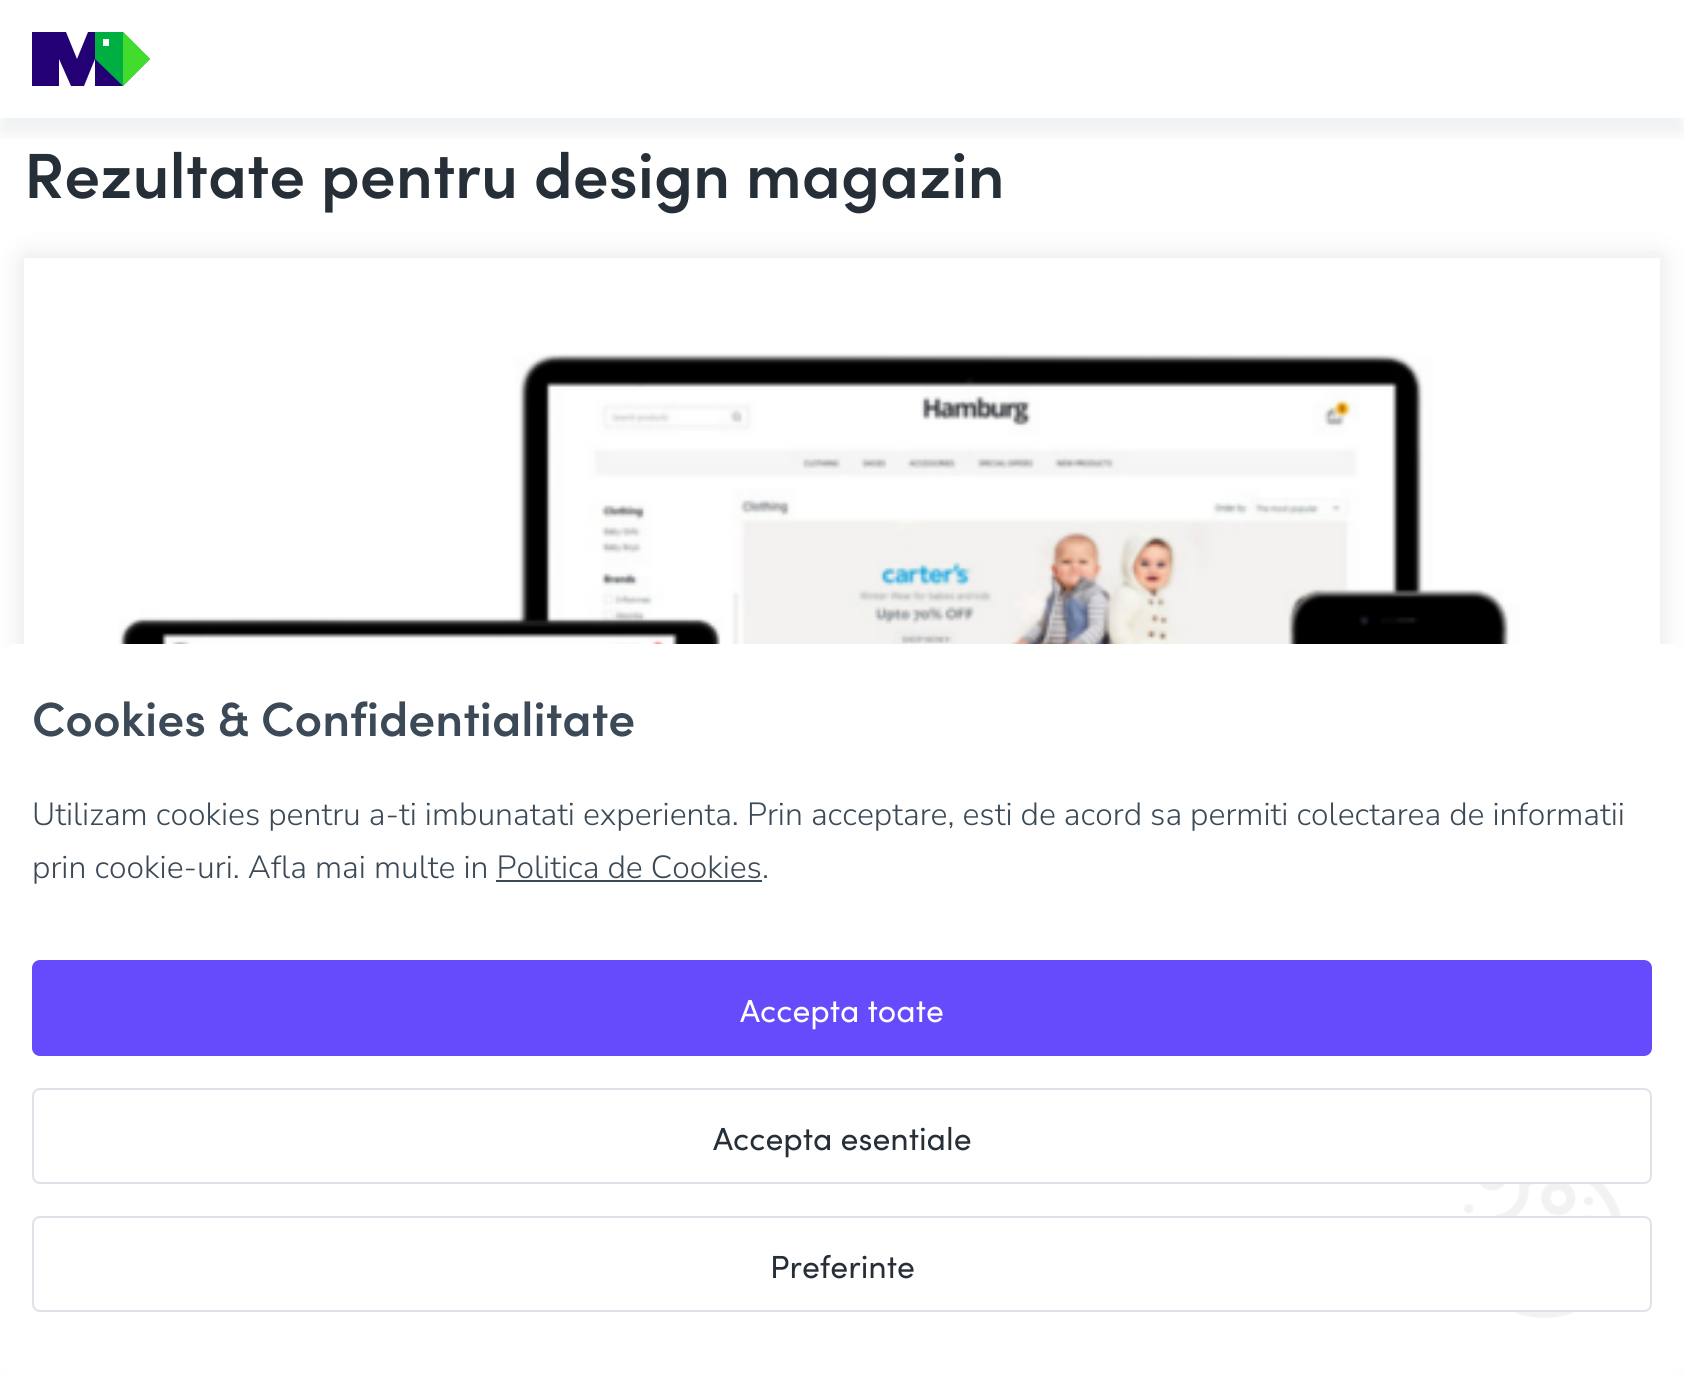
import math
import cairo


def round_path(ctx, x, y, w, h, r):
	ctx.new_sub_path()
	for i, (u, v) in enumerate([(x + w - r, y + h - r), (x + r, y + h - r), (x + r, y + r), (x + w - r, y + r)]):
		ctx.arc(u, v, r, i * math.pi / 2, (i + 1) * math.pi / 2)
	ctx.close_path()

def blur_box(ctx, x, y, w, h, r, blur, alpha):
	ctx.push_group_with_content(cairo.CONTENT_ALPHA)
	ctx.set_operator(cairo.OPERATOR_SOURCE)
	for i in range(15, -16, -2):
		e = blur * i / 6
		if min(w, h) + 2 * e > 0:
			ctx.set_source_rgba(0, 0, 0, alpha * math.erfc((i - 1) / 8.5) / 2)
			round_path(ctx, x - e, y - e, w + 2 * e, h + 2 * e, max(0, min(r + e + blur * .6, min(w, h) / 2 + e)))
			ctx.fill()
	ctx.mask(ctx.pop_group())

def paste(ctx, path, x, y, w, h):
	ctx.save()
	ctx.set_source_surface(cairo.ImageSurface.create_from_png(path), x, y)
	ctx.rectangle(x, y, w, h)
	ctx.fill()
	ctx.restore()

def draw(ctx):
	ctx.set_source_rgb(1, 1, 1)
	ctx.paint()
	ctx.save()
	ctx.rectangle(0, 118, 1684, 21)
	ctx.clip()
	ctx.set_source_rgb(0.094, 0.184, 0.306)
	blur_box(ctx, 0, 16, 1684, 118, 0, 8, 0.07)
	ctx.restore()
	ctx.set_source_rgb(0.137, 0, 0.451)
	ctx.new_path()
	ctx.move_to(88, 32)
	ctx.line_to(77, 59)
	ctx.line_to(66, 32)
	ctx.line_to(32, 32)
	ctx.line_to(32, 86)
	ctx.line_to(59, 86)
	ctx.line_to(59, 59)
	ctx.line_to(71, 86)
	ctx.line_to(84, 86)
	ctx.line_to(95, 59)
	ctx.line_to(95, 86)
	ctx.line_to(123, 86)
	ctx.line_to(95, 32)
	ctx.close_path()
	ctx.fill()
	ctx.set_source_rgb(0, 0.686, 0.255)
	ctx.new_path()
	ctx.move_to(123, 32)
	ctx.line_to(95, 32)
	ctx.line_to(95, 59)
	ctx.line_to(123, 86)
	ctx.line_to(150, 59)
	ctx.close_path()
	ctx.move_to(109, 46)
	ctx.line_to(103, 46)
	ctx.line_to(103, 39)
	ctx.line_to(109, 39)
	ctx.close_path()
	ctx.fill()
	ctx.set_source_rgb(0.255, 0.863, 0.176)
	ctx.new_path()
	ctx.move_to(150, 59)
	ctx.line_to(123, 32)
	ctx.line_to(123, 86)
	ctx.close_path()
	ctx.fill()
	ctx.select_font_face('Sofia SemiBold')
	ctx.set_font_size(64)
	ctx.set_source_rgb(0.149, 0.184, 0.216)
	ctx.move_to(24, 198)
	ctx.show_text('Rezultate pentru design magazin')
	ctx.save()
	ctx.set_fill_rule(cairo.FILL_RULE_EVEN_ODD)
	ctx.new_path()
	ctx.move_to(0, 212)
	ctx.line_to(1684, 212)
	ctx.line_to(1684, 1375)
	ctx.line_to(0, 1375)
	ctx.close_path()
	ctx.move_to(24, 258)
	ctx.line_to(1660, 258)
	ctx.line_to(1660, 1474)
	ctx.line_to(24, 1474)
	ctx.close_path()
	ctx.clip()
	ctx.set_source_rgb(0.075, 0.106, 0.188)
	blur_box(ctx, 24, 258, 1636, 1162, 0, 15, 0.12)
	ctx.restore()
	paste(ctx, 'media/1.png', 118, 353, 1408, 291)
	ctx.set_source_rgb(1, 1, 1)
	round_path(ctx, 0, 644, 1684, 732, 16)
	ctx.fill()
	paste(ctx, 'media/2.png', 1464, 1184, 157, 134)
	ctx.set_font_size(48)
	ctx.set_source_rgb(0.235, 0.29, 0.341)
	ctx.move_to(32, 736)
	ctx.show_text('Cookies & Confidentialitate')
	ctx.select_font_face('Nunito Sans Light')
	ctx.set_font_size(32)
	ctx.move_to(32, 825)
	ctx.show_text('Utilizam cookies pentru a-ti imbunatati experienta. Prin acceptare, esti de acord sa permiti colectarea de informatii')
	ctx.move_to(32, 878)
	ctx.show_text('prin cookie-uri. Afla mai multe in Politica de Cookies.')
	ctx.rectangle(496, 880, 266, 2)
	ctx.fill()
	ctx.set_source_rgb(0.396, 0.294, 0.984)
	round_path(ctx, 33, 961, 1618, 94, 7)
	ctx.fill_preserve()
	ctx.stroke()
	ctx.select_font_face('Sofia')
	ctx.set_source_rgb(1, 1, 1)
	ctx.move_to(740, 1022)
	ctx.show_text('Accepta toate')
	round_path(ctx, 33, 1089, 1618, 94, 7)
	ctx.set_source_rgb(0.875, 0.886, 0.914)
	ctx.stroke()
	ctx.set_source_rgb(0.149, 0.184, 0.216)
	ctx.move_to(713, 1150)
	ctx.show_text('Accepta esentiale')
	ctx.set_source_rgb(1, 1, 1)
	round_path(ctx, 33, 1217, 1618, 94, 7)
	ctx.fill_preserve()
	ctx.set_source_rgb(0.875, 0.886, 0.914)
	ctx.stroke()
	ctx.set_source_rgb(0.149, 0.184, 0.216)
	ctx.move_to(770, 1278)
	ctx.show_text('Preferinte')


surface = cairo.ImageSurface(cairo.FORMAT_RGB24, 1684, 1375)
ctx = cairo.Context(surface)
options = cairo.FontOptions()
options.set_hint_metrics(cairo.HINT_METRICS_OFF)
options.set_hint_style(cairo.HINT_STYLE_NONE)
ctx.set_font_options(options)
ctx.set_miter_limit(4)
draw(ctx)
surface.write_to_png('image.png')
